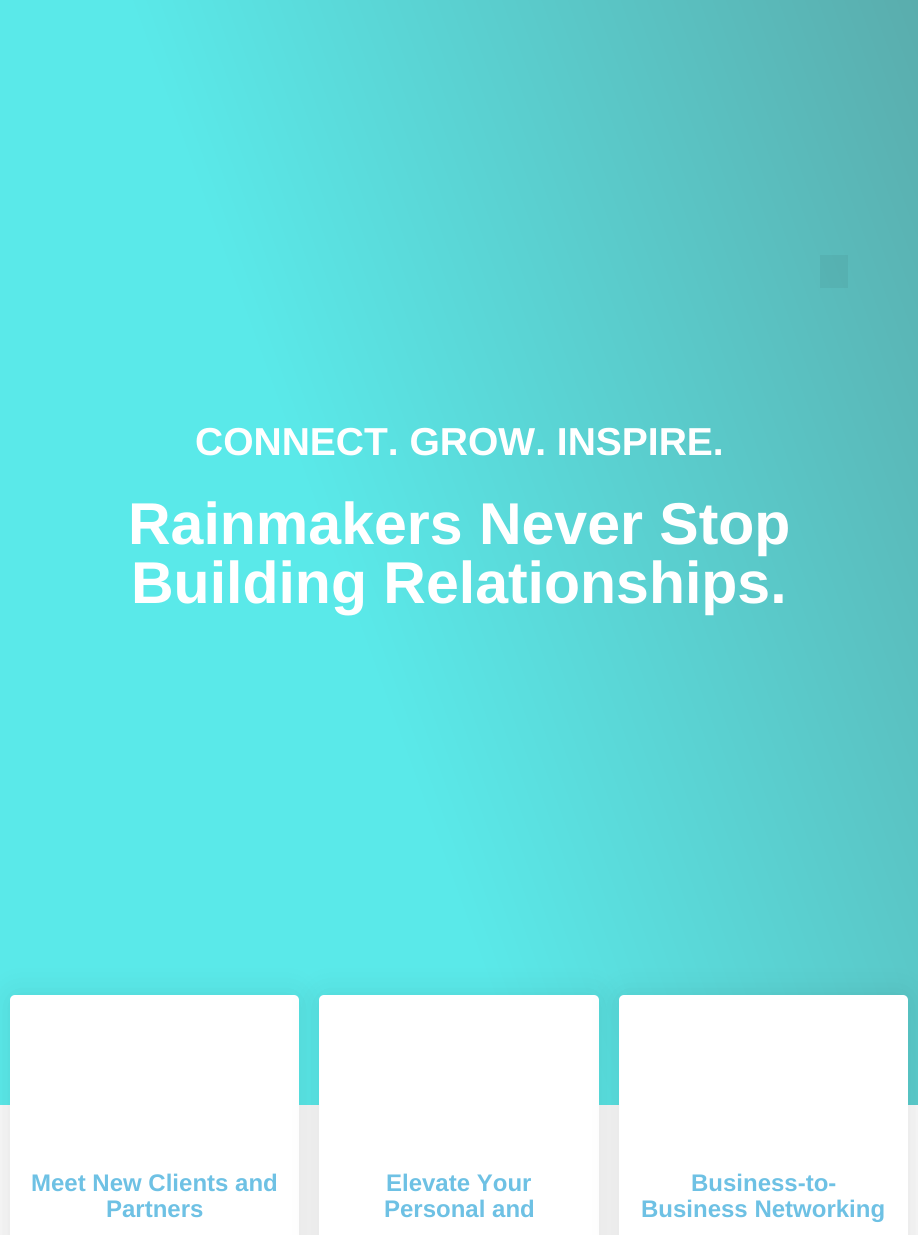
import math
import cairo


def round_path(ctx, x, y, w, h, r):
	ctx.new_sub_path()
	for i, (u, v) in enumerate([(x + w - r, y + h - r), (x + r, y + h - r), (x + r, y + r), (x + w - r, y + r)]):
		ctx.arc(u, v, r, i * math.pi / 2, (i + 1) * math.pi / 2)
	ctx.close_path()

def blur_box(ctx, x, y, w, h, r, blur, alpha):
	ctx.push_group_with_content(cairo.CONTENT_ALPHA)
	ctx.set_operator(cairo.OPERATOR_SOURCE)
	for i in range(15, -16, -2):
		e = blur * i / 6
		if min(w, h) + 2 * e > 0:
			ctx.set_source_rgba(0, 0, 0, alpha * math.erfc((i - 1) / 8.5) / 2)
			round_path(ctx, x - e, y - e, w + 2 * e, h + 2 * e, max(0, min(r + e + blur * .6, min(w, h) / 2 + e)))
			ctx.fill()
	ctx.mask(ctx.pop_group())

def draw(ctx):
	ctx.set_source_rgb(0.976, 0.976, 0.976)
	ctx.paint()
	gradient = cairo.LinearGradient(-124, 765, 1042, 340)
	gradient.add_color_stop_rgba(0.4, 0.353, 0.914, 0.914, 1)
	gradient.add_color_stop_rgba(1, 0.353, 0.678, 0.678, 1)
	ctx.set_source(gradient)
	ctx.rectangle(0, 0, 918, 1105)
	ctx.fill()
	ctx.set_source_rgba(0, 0, 0, 0.05)
	ctx.rectangle(820, 255, 28, 33)
	ctx.fill()
	ctx.select_font_face('Liberation Sans', cairo.FONT_SLANT_NORMAL, cairo.FONT_WEIGHT_BOLD)
	ctx.set_font_size(39)
	ctx.set_source_rgb(1, 1, 1)
	ctx.move_to(195, 455)
	ctx.show_text('CONNECT. GROW. INSPIRE.')
	ctx.set_font_size(59)
	ctx.move_to(128, 544)
	ctx.show_text('Rainmakers Never Stop')
	ctx.move_to(131, 603)
	ctx.show_text('Building Relationships.')
	ctx.set_source_rgb(0, 0, 0)
	blur_box(ctx, 10, 995, 289, 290, 5, 15, 0.1)
	ctx.set_source_rgb(1, 1, 1)
	round_path(ctx, 10, 995, 289, 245, 5)
	ctx.fill()
	ctx.set_font_size(24)
	ctx.set_source_rgb(0.431, 0.757, 0.894)
	ctx.move_to(31, 1191)
	ctx.show_text('Meet New Clients and')
	ctx.move_to(106, 1217)
	ctx.show_text('Partners')
	ctx.set_source_rgb(0, 0, 0)
	blur_box(ctx, 319, 995, 280, 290, 5, 15, 0.1)
	ctx.set_source_rgb(1, 1, 1)
	round_path(ctx, 319, 995, 280, 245, 5)
	ctx.fill()
	ctx.set_source_rgb(0.431, 0.757, 0.894)
	ctx.move_to(386, 1191)
	ctx.show_text('Elevate Your')
	ctx.move_to(384, 1217)
	ctx.show_text('Personal and')
	ctx.set_source_rgb(0, 0, 0)
	blur_box(ctx, 619, 995, 289, 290, 5, 15, 0.1)
	ctx.set_source_rgb(1, 1, 1)
	round_path(ctx, 619, 995, 289, 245, 5)
	ctx.fill()
	ctx.set_source_rgb(0.431, 0.757, 0.894)
	ctx.move_to(691, 1191)
	ctx.show_text('Business-to-')
	ctx.move_to(641, 1217)
	ctx.show_text('Business Networking')


surface = cairo.ImageSurface(cairo.FORMAT_RGB24, 918, 1235)
ctx = cairo.Context(surface)
options = cairo.FontOptions()
options.set_hint_metrics(cairo.HINT_METRICS_OFF)
options.set_hint_style(cairo.HINT_STYLE_NONE)
ctx.set_font_options(options)
ctx.set_miter_limit(4)
draw(ctx)
surface.write_to_png('image.png')
